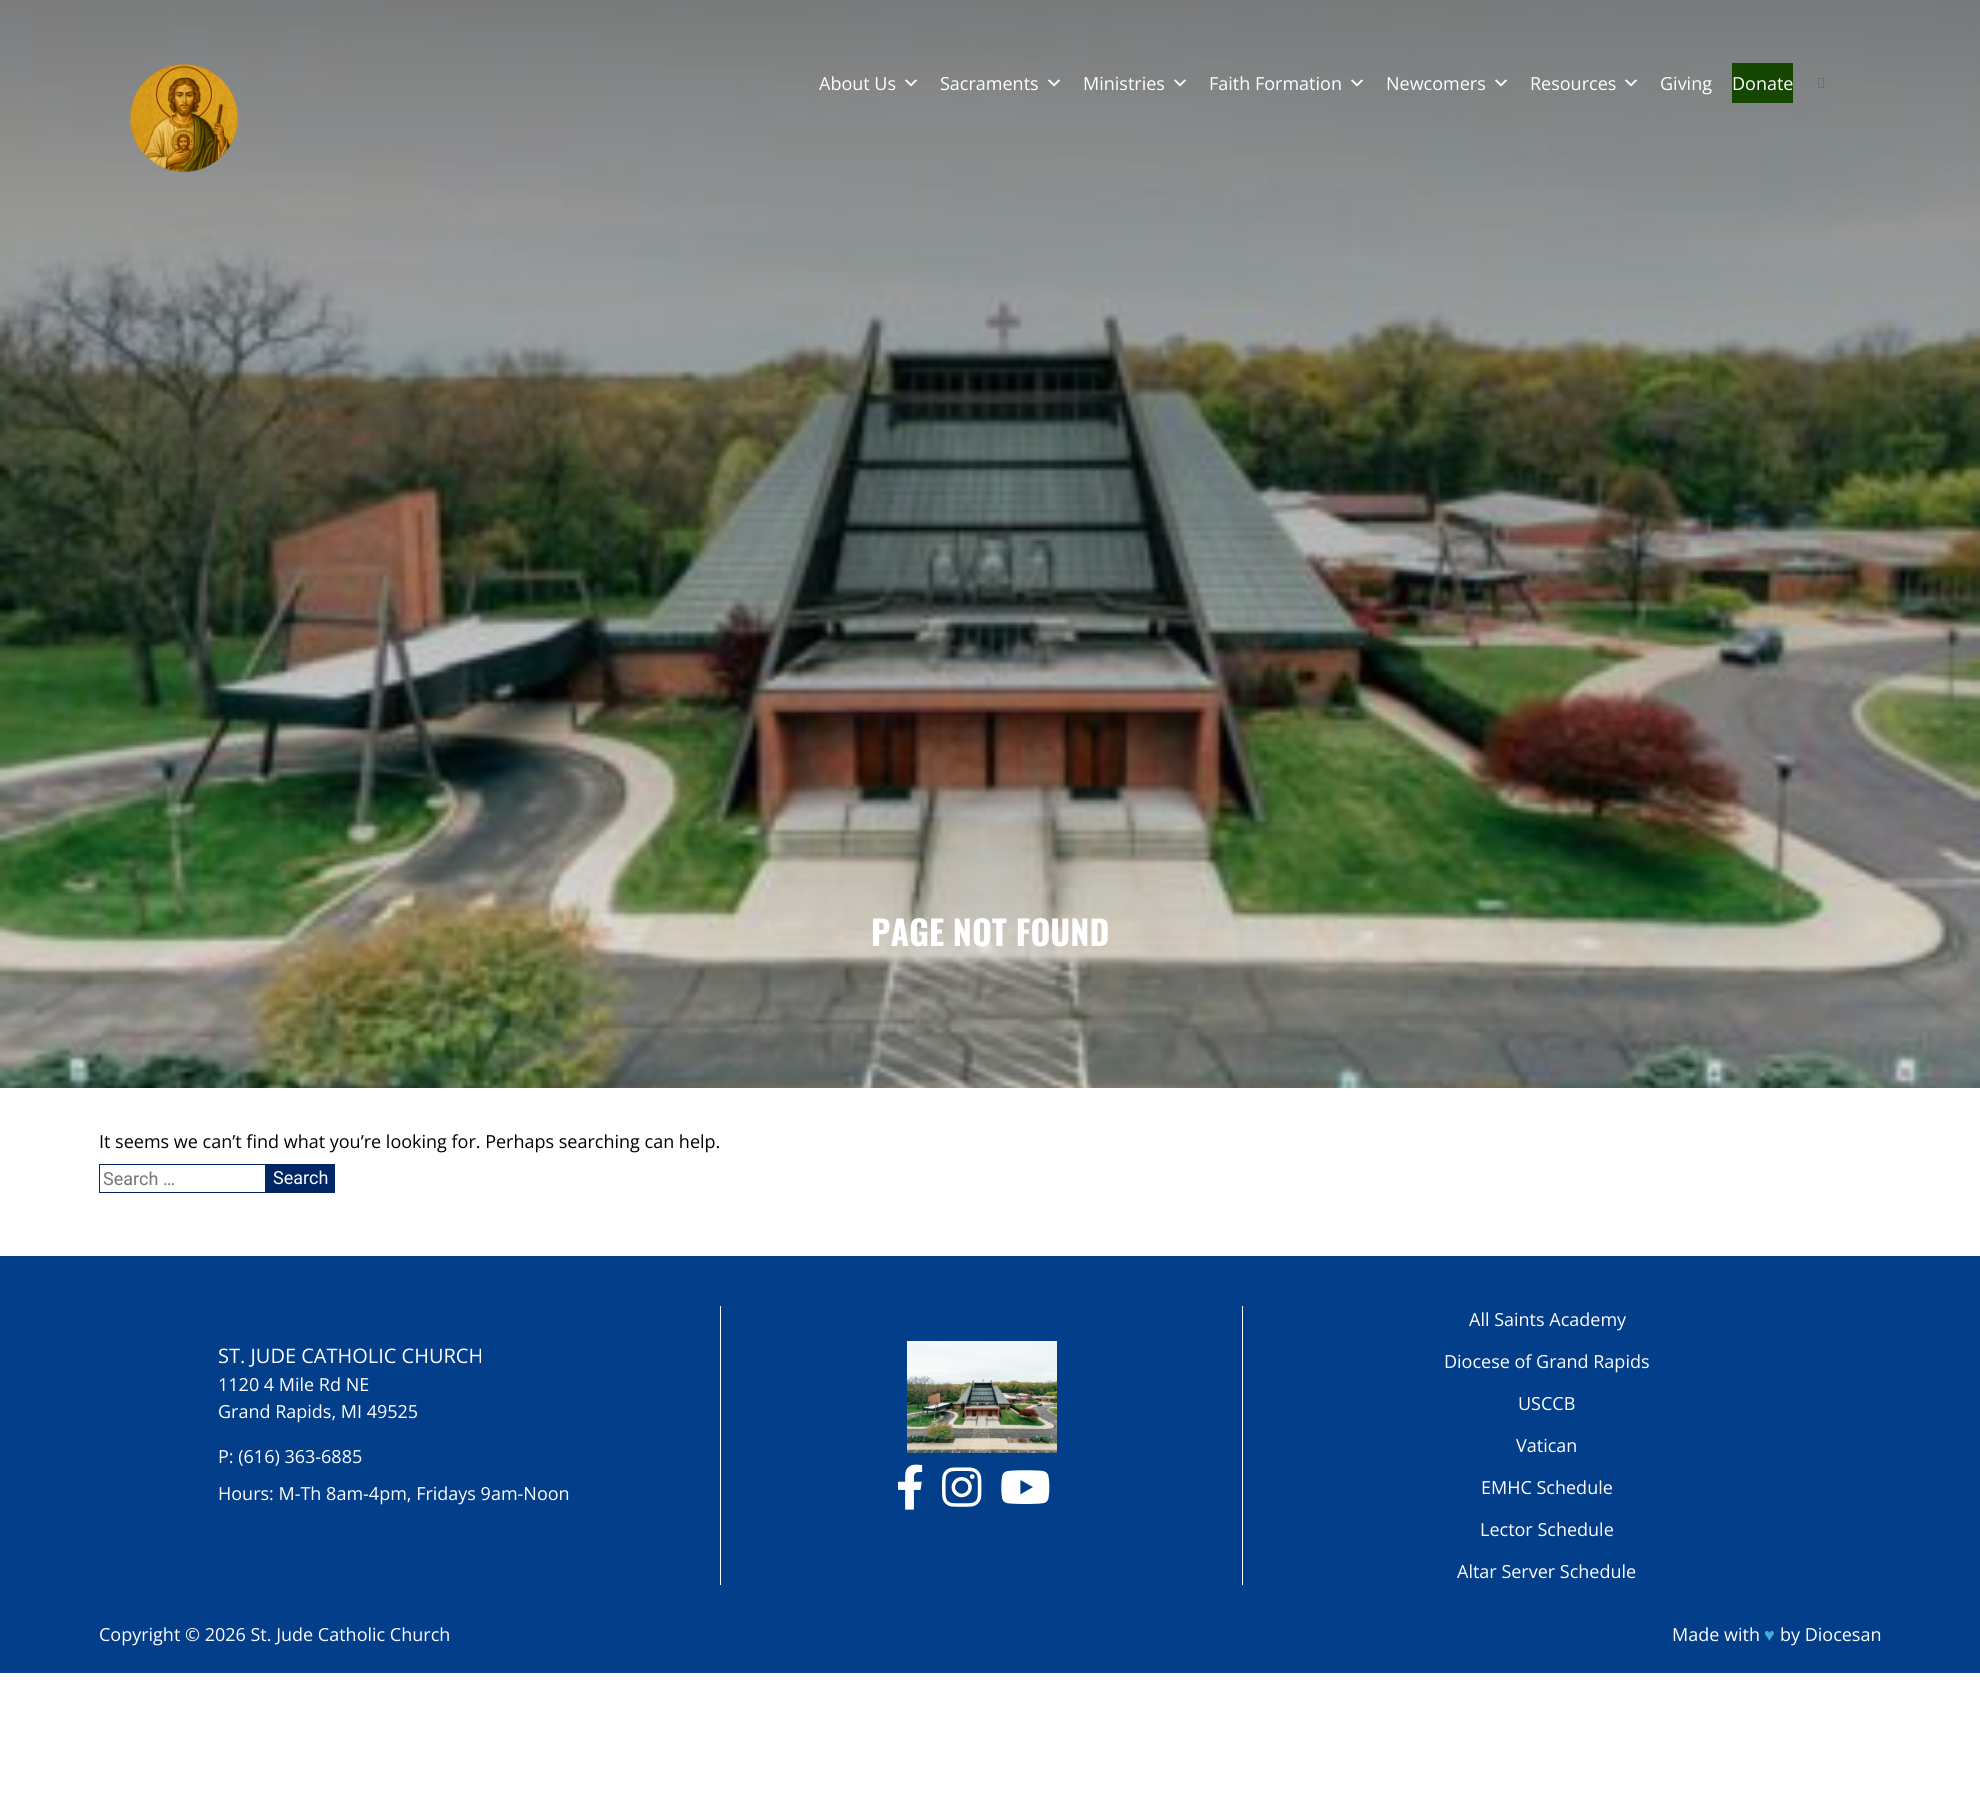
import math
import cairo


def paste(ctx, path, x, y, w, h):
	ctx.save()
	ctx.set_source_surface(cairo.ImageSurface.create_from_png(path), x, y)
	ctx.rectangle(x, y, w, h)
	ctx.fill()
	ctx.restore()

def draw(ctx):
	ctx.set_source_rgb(1, 1, 1)
	ctx.paint()
	paste(ctx, 'media/9.png', 0, 0, 1980, 1088)
	paste(ctx, 'media/1.png', 130, 64, 109, 109)
	ctx.select_font_face('Open Sans')
	ctx.set_font_size(18)
	ctx.set_source_rgb(1, 1, 1)
	ctx.move_to(819, 90)
	ctx.show_text('About Us')
	paste(ctx, 'media/2.png', 904, 79, 14, 8)
	ctx.move_to(940, 90)
	ctx.show_text('Sacraments')
	paste(ctx, 'media/3.png', 1047, 79, 14, 8)
	ctx.move_to(1083, 90)
	ctx.show_text('Ministries')
	paste(ctx, 'media/4.png', 1173, 79, 14, 8)
	ctx.move_to(1209, 90)
	ctx.show_text('Faith Formation')
	paste(ctx, 'media/5.png', 1350, 79, 14, 8)
	ctx.move_to(1386, 90)
	ctx.show_text('Newcomers')
	paste(ctx, 'media/6.png', 1494, 79, 14, 8)
	ctx.move_to(1530, 90)
	ctx.show_text('Resources')
	paste(ctx, 'media/7.png', 1624, 79, 14, 8)
	ctx.move_to(1660, 90)
	ctx.show_text('Giving')
	ctx.set_source_rgb(0.086, 0.278, 0.008)
	ctx.rectangle(1732, 63, 61, 40)
	ctx.fill()
	ctx.set_source_rgb(1, 1, 1)
	ctx.move_to(1732, 90)
	ctx.show_text('Donate')
	paste(ctx, 'media/8.png', 1818, 78, 6, 10)
	ctx.select_font_face('Oswald', cairo.FONT_SLANT_NORMAL, cairo.FONT_WEIGHT_BOLD)
	ctx.set_font_size(34)
	ctx.move_to(871, 946)
	ctx.show_text('PAGE NOT FOUND')
	ctx.select_font_face('Open Sans')
	ctx.set_font_size(18)
	ctx.set_source_rgb(0, 0, 0)
	ctx.move_to(99, 1148)
	ctx.show_text('It seems we can’t find what you’re looking for. Perhaps searching can help.')
	ctx.rectangle(99.5, 1164.5, 235, 28)
	ctx.set_source_rgb(0.004, 0.149, 0.4)
	ctx.set_line_width(1)
	ctx.stroke()
	ctx.select_font_face('Roboto')
	ctx.set_source_rgb(0.459, 0.459, 0.459)
	ctx.move_to(103, 1185)
	ctx.show_text('Search …')
	ctx.set_source_rgb(0.004, 0.149, 0.4)
	ctx.rectangle(265, 1165, 69, 27)
	ctx.fill()
	ctx.set_source_rgb(1, 1, 1)
	ctx.move_to(273, 1184)
	ctx.show_text('Search')
	ctx.set_source_rgb(0.008, 0.243, 0.541)
	ctx.rectangle(0, 1256, 1980, 417)
	ctx.fill()
	ctx.select_font_face('Open Sans')
	ctx.set_font_size(20)
	ctx.set_source_rgb(1, 1, 1)
	ctx.move_to(218, 1363)
	ctx.show_text('ST. JUDE CATHOLIC CHURCH')
	ctx.set_font_size(18)
	ctx.move_to(218, 1391)
	ctx.show_text('1120 4 Mile Rd NE')
	ctx.move_to(218, 1418)
	ctx.show_text('Grand Rapids, MI 49525')
	ctx.rectangle(720, 1306, 1, 279)
	ctx.fill()
	ctx.move_to(218, 1463)
	ctx.show_text('P: (616) 363-6885')
	ctx.move_to(218, 1500)
	ctx.show_text('Hours: M-Th 8am-4pm, Fridays 9am-Noon')
	paste(ctx, 'media/10.png', 907, 1341, 150, 112)
	ctx.rectangle(1242, 1306, 1, 279)
	ctx.fill()
	paste(ctx, 'media/11.png', 898, 1464, 25, 46)
	paste(ctx, 'media/12.png', 942, 1467, 40, 40)
	paste(ctx, 'media/13.png', 1001, 1470, 49, 34)
	for x, y, s in [
		(1469, 1326, 'All Saints Academy'),
		(1444, 1368, 'Diocese of Grand Rapids'),
		(1518, 1410, 'USCCB'),
		(1516, 1452, 'Vatican'),
		(1481, 1494, 'EMHC Schedule'),
		(1480, 1536, 'Lector Schedule'),
		(1457, 1578, 'Altar Server Schedule'),
		(99, 1641, 'Copyright © 2026 St. Jude Catholic Church'),
		(1672, 1641, 'Made with'),
	]:
		ctx.move_to(x, y)
		ctx.show_text(s)
	ctx.select_font_face('Liberation Serif')
	ctx.set_source_rgb(0.271, 0.671, 0.855)
	ctx.move_to(1764, 1641)
	ctx.show_text('♥')
	ctx.select_font_face('Open Sans')
	ctx.set_source_rgb(1, 1, 1)
	ctx.move_to(1780, 1641)
	ctx.show_text('by Diocesan')


surface = cairo.ImageSurface(cairo.FORMAT_RGB24, 1980, 1813)
ctx = cairo.Context(surface)
options = cairo.FontOptions()
options.set_hint_metrics(cairo.HINT_METRICS_OFF)
options.set_hint_style(cairo.HINT_STYLE_NONE)
ctx.set_font_options(options)
ctx.set_miter_limit(4)
draw(ctx)
surface.write_to_png('image.png')
